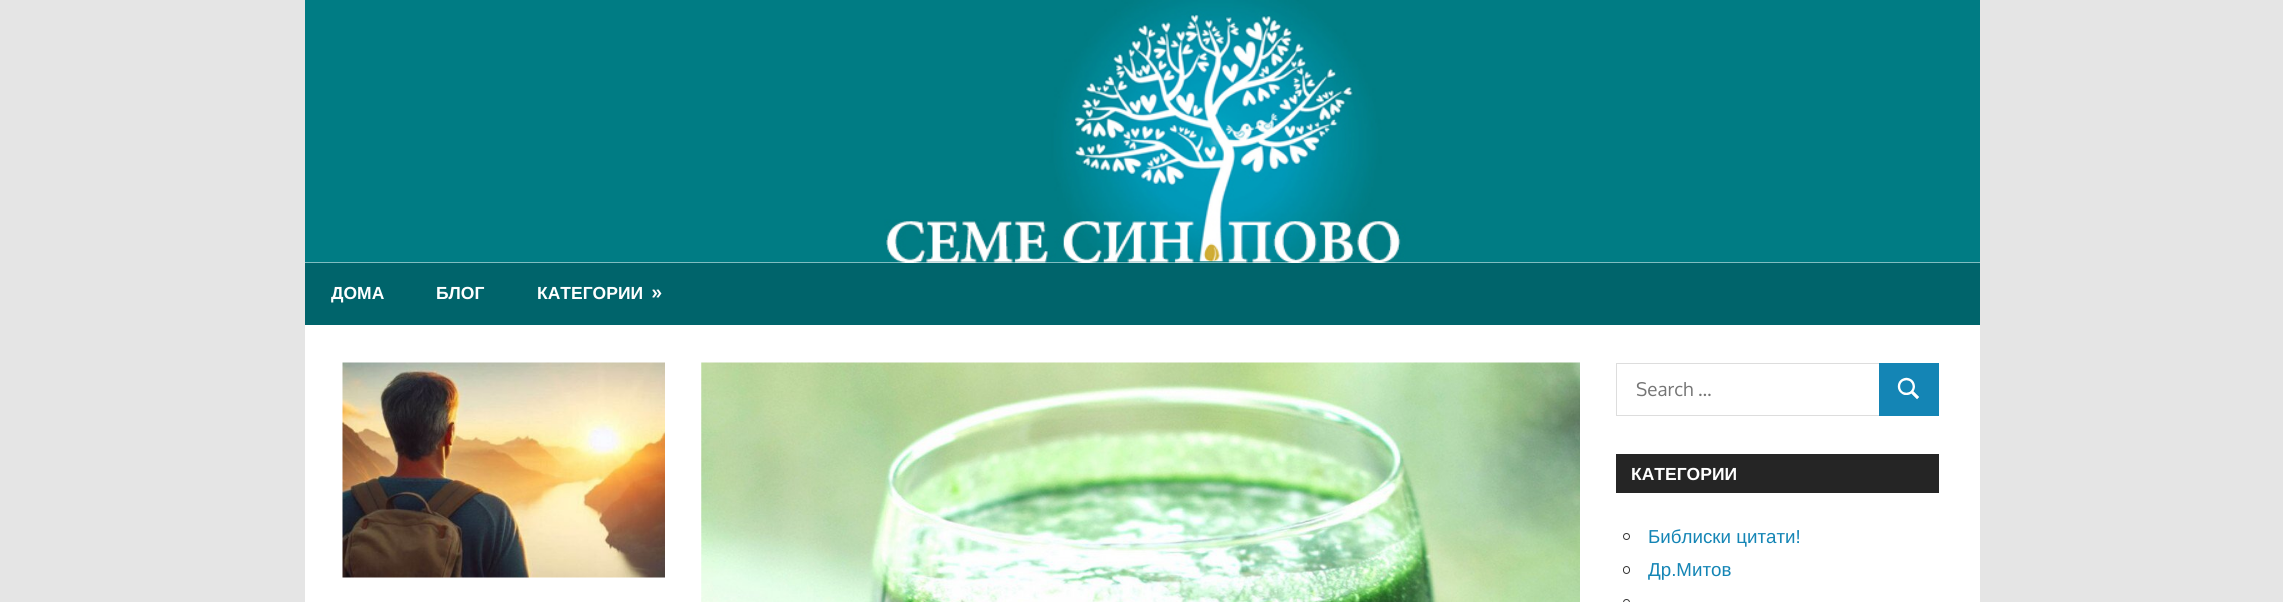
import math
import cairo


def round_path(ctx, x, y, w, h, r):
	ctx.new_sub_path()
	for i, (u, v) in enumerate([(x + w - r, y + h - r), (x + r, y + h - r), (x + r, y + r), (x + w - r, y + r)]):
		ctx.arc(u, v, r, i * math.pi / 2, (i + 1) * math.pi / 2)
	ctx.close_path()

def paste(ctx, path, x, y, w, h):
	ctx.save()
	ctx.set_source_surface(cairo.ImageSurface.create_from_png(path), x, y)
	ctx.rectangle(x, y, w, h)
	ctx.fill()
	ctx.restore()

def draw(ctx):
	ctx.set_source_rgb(0.898, 0.898, 0.898)
	ctx.paint()
	ctx.set_source_rgb(1, 1, 1)
	ctx.rectangle(305, 262, 1675, 1)
	ctx.fill()
	paste(ctx, 'media/1.png', 305, 0, 1675, 263)
	ctx.set_source_rgb(0, 0.392, 0.42)
	ctx.rectangle(305, 263, 1675, 62)
	ctx.fill()
	ctx.select_font_face('Liberation Sans', cairo.FONT_SLANT_NORMAL, cairo.FONT_WEIGHT_BOLD)
	ctx.set_font_size(17.5)
	ctx.set_source_rgb(1, 1, 1)
	for x, y, s in [
		(331, 299, 'ДОМА'),
		(436, 299, 'БЛОГ'),
		(537, 299, 'КАТЕГОРИИ'),
	]:
		ctx.move_to(x, y)
		ctx.show_text(s)
	ctx.select_font_face('Oxygen', cairo.FONT_SLANT_NORMAL, cairo.FONT_WEIGHT_BOLD)
	ctx.set_font_size(20)
	ctx.move_to(651, 299)
	ctx.show_text('»')
	ctx.rectangle(305, 325, 1675, 277)
	ctx.fill()
	paste(ctx, 'media/2.png', 342, 362, 323, 216)
	paste(ctx, 'media/3.png', 701, 362, 879, 240)
	ctx.rectangle(1616.5, 363.5, 263, 52)
	ctx.set_source_rgb(0.867, 0.867, 0.867)
	ctx.set_line_width(1)
	ctx.stroke()
	ctx.select_font_face('Oxygen')
	ctx.set_font_size(18.75)
	ctx.set_source_rgb(0.459, 0.459, 0.459)
	ctx.move_to(1636, 396)
	ctx.show_text('Search …')
	ctx.set_source_rgb(0.082, 0.522, 0.71)
	ctx.rectangle(1879, 363, 60, 53)
	ctx.fill()
	paste(ctx, 'media/4.png', 1897, 377, 22, 23)
	ctx.set_source_rgb(0.145, 0.145, 0.145)
	ctx.rectangle(1616, 454, 323, 39)
	ctx.fill()
	ctx.select_font_face('Liberation Sans', cairo.FONT_SLANT_NORMAL, cairo.FONT_WEIGHT_BOLD)
	ctx.set_font_size(17.5)
	ctx.set_source_rgb(1, 1, 1)
	ctx.move_to(1631, 480)
	ctx.show_text('КАТЕГОРИИ')
	ctx.new_path()
	ctx.arc(1626.5, 536.5, 3, 0, 2 * math.pi)
	ctx.set_source_rgb(0.2, 0.2, 0.2)
	ctx.stroke()
	ctx.select_font_face('Liberation Sans')
	ctx.set_font_size(18.75)
	ctx.set_source_rgb(0.082, 0.522, 0.71)
	ctx.move_to(1648, 543)
	ctx.show_text('Библиски цитати!')
	round_path(ctx, 1623.5, 566.5, 6, 7, 3)
	ctx.set_source_rgb(0.2, 0.2, 0.2)
	ctx.stroke()
	ctx.set_source_rgb(0.082, 0.522, 0.71)
	ctx.move_to(1648, 576)
	ctx.show_text('Др.Митов')
	ctx.new_path()
	ctx.arc(1626.5, 602.5, 3, 0, 2 * math.pi)
	ctx.set_source_rgb(0.2, 0.2, 0.2)
	ctx.stroke()


surface = cairo.ImageSurface(cairo.FORMAT_RGB24, 2283, 602)
ctx = cairo.Context(surface)
options = cairo.FontOptions()
options.set_hint_metrics(cairo.HINT_METRICS_OFF)
options.set_hint_style(cairo.HINT_STYLE_NONE)
ctx.set_font_options(options)
ctx.set_miter_limit(4)
draw(ctx)
surface.write_to_png('image.png')
